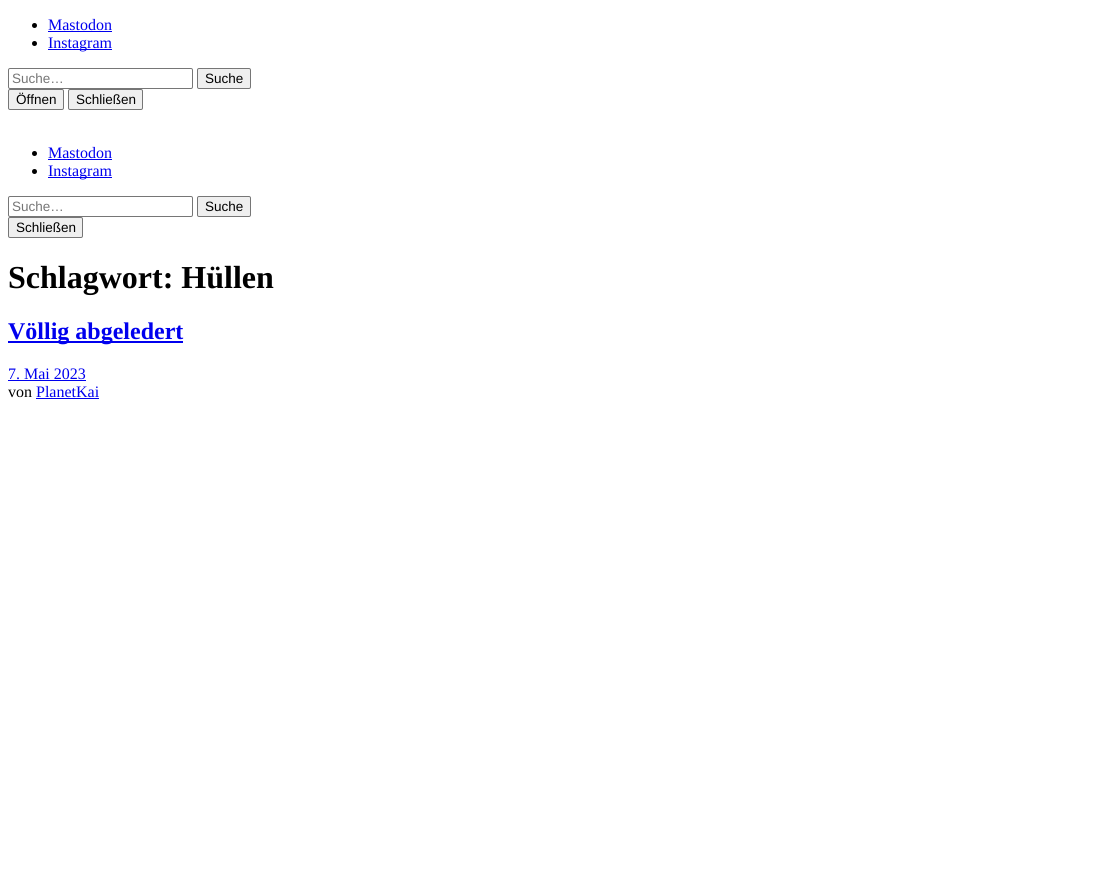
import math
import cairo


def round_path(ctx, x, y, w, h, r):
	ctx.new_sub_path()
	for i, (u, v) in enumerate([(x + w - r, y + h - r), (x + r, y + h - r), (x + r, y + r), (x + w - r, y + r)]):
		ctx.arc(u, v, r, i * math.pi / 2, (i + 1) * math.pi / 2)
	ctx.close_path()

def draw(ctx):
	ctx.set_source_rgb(1, 1, 1)
	ctx.paint()
	ctx.set_source_rgb(0, 0, 0)
	ctx.arc(34.5, 25.5, 2.5, 0, 2 * math.pi)
	ctx.fill()
	ctx.select_font_face('Liberation Serif')
	ctx.set_font_size(16)
	ctx.set_source_rgb(0, 0, 0.933)
	ctx.move_to(48, 30)
	ctx.show_text('Mastodon')
	ctx.rectangle(48, 31, 64, 1)
	ctx.fill()
	ctx.set_source_rgb(0, 0, 0)
	ctx.arc(34.5, 43.5, 2.5, 0, 2 * math.pi)
	ctx.fill()
	ctx.set_source_rgb(0, 0, 0.933)
	ctx.rectangle(48, 49, 64, 1)
	ctx.fill()
	ctx.move_to(48, 48)
	ctx.show_text('Instagram')
	round_path(ctx, 8.5, 68.5, 184, 20, 1.5)
	ctx.set_source_rgb(0.463, 0.463, 0.463)
	ctx.set_line_width(1)
	ctx.stroke()
	ctx.select_font_face('Liberation Sans')
	ctx.set_font_size(13.5)
	ctx.set_source_rgb(0.459, 0.459, 0.459)
	ctx.move_to(12, 83)
	ctx.show_text('Suche…')
	ctx.set_source_rgb(0.937, 0.937, 0.937)
	round_path(ctx, 197.5, 68.5, 53, 20, 1.5)
	ctx.fill_preserve()
	ctx.set_source_rgb(0.463, 0.463, 0.463)
	ctx.stroke()
	ctx.set_source_rgb(0, 0, 0)
	ctx.move_to(205, 83)
	ctx.show_text('Suche')
	ctx.set_source_rgb(0.937, 0.937, 0.937)
	round_path(ctx, 8.5, 89.5, 55, 20, 1.5)
	ctx.fill_preserve()
	ctx.set_source_rgb(0.463, 0.463, 0.463)
	ctx.stroke()
	ctx.set_source_rgb(0, 0, 0)
	ctx.move_to(16, 104)
	ctx.show_text('Öffnen')
	ctx.set_source_rgb(0.937, 0.937, 0.937)
	round_path(ctx, 68.5, 89.5, 74, 20, 1.5)
	ctx.fill_preserve()
	ctx.set_source_rgb(0.463, 0.463, 0.463)
	ctx.stroke()
	ctx.set_source_rgb(0, 0, 0)
	ctx.move_to(76, 104)
	ctx.show_text('Schließen')
	ctx.new_path()
	ctx.arc(34.5, 153.5, 2.5, 0, 2 * math.pi)
	ctx.fill()
	ctx.select_font_face('Liberation Serif')
	ctx.set_font_size(16)
	ctx.set_source_rgb(0, 0, 0.933)
	ctx.move_to(48, 158)
	ctx.show_text('Mastodon')
	ctx.rectangle(48, 159, 64, 1)
	ctx.fill()
	ctx.set_source_rgb(0, 0, 0)
	ctx.arc(34.5, 171.5, 2.5, 0, 2 * math.pi)
	ctx.fill()
	ctx.set_source_rgb(0, 0, 0.933)
	ctx.rectangle(48, 177, 64, 1)
	ctx.fill()
	ctx.move_to(48, 176)
	ctx.show_text('Instagram')
	round_path(ctx, 8.5, 196.5, 184, 20, 1.5)
	ctx.set_source_rgb(0.463, 0.463, 0.463)
	ctx.stroke()
	ctx.select_font_face('Liberation Sans')
	ctx.set_font_size(13.5)
	ctx.set_source_rgb(0.459, 0.459, 0.459)
	ctx.move_to(12, 211)
	ctx.show_text('Suche…')
	ctx.set_source_rgb(0.937, 0.937, 0.937)
	round_path(ctx, 197.5, 196.5, 53, 20, 1.5)
	ctx.fill_preserve()
	ctx.set_source_rgb(0.463, 0.463, 0.463)
	ctx.stroke()
	ctx.set_source_rgb(0, 0, 0)
	ctx.move_to(205, 211)
	ctx.show_text('Suche')
	ctx.set_source_rgb(0.937, 0.937, 0.937)
	round_path(ctx, 8.5, 217.5, 74, 20, 1.5)
	ctx.fill_preserve()
	ctx.set_source_rgb(0.463, 0.463, 0.463)
	ctx.stroke()
	ctx.set_source_rgb(0, 0, 0)
	ctx.move_to(16, 232)
	ctx.show_text('Schließen')
	ctx.select_font_face('Liberation Serif', cairo.FONT_SLANT_NORMAL, cairo.FONT_WEIGHT_BOLD)
	ctx.set_font_size(32)
	ctx.move_to(8, 288)
	ctx.show_text('Schlagwort: Hüllen')
	ctx.set_source_rgb(0, 0, 0.933)
	ctx.rectangle(8, 341, 175, 2)
	ctx.fill()
	ctx.set_font_size(24)
	ctx.move_to(8, 339)
	ctx.show_text('Völlig abgeledert')
	ctx.select_font_face('Liberation Serif')
	ctx.set_font_size(16)
	ctx.move_to(8, 379)
	ctx.show_text('7. Mai 2023')
	ctx.rectangle(8, 380, 78, 1)
	ctx.fill()
	ctx.set_source_rgb(0, 0, 0)
	ctx.move_to(8, 397)
	ctx.show_text('von')
	ctx.set_source_rgb(0, 0, 0.933)
	ctx.move_to(36, 397)
	ctx.show_text('PlanetKai')
	ctx.rectangle(36, 398, 63, 1)
	ctx.fill()


surface = cairo.ImageSurface(cairo.FORMAT_RGB24, 1103, 871)
ctx = cairo.Context(surface)
options = cairo.FontOptions()
options.set_hint_metrics(cairo.HINT_METRICS_OFF)
options.set_hint_style(cairo.HINT_STYLE_NONE)
ctx.set_font_options(options)
ctx.set_miter_limit(4)
draw(ctx)
surface.write_to_png('image.png')
